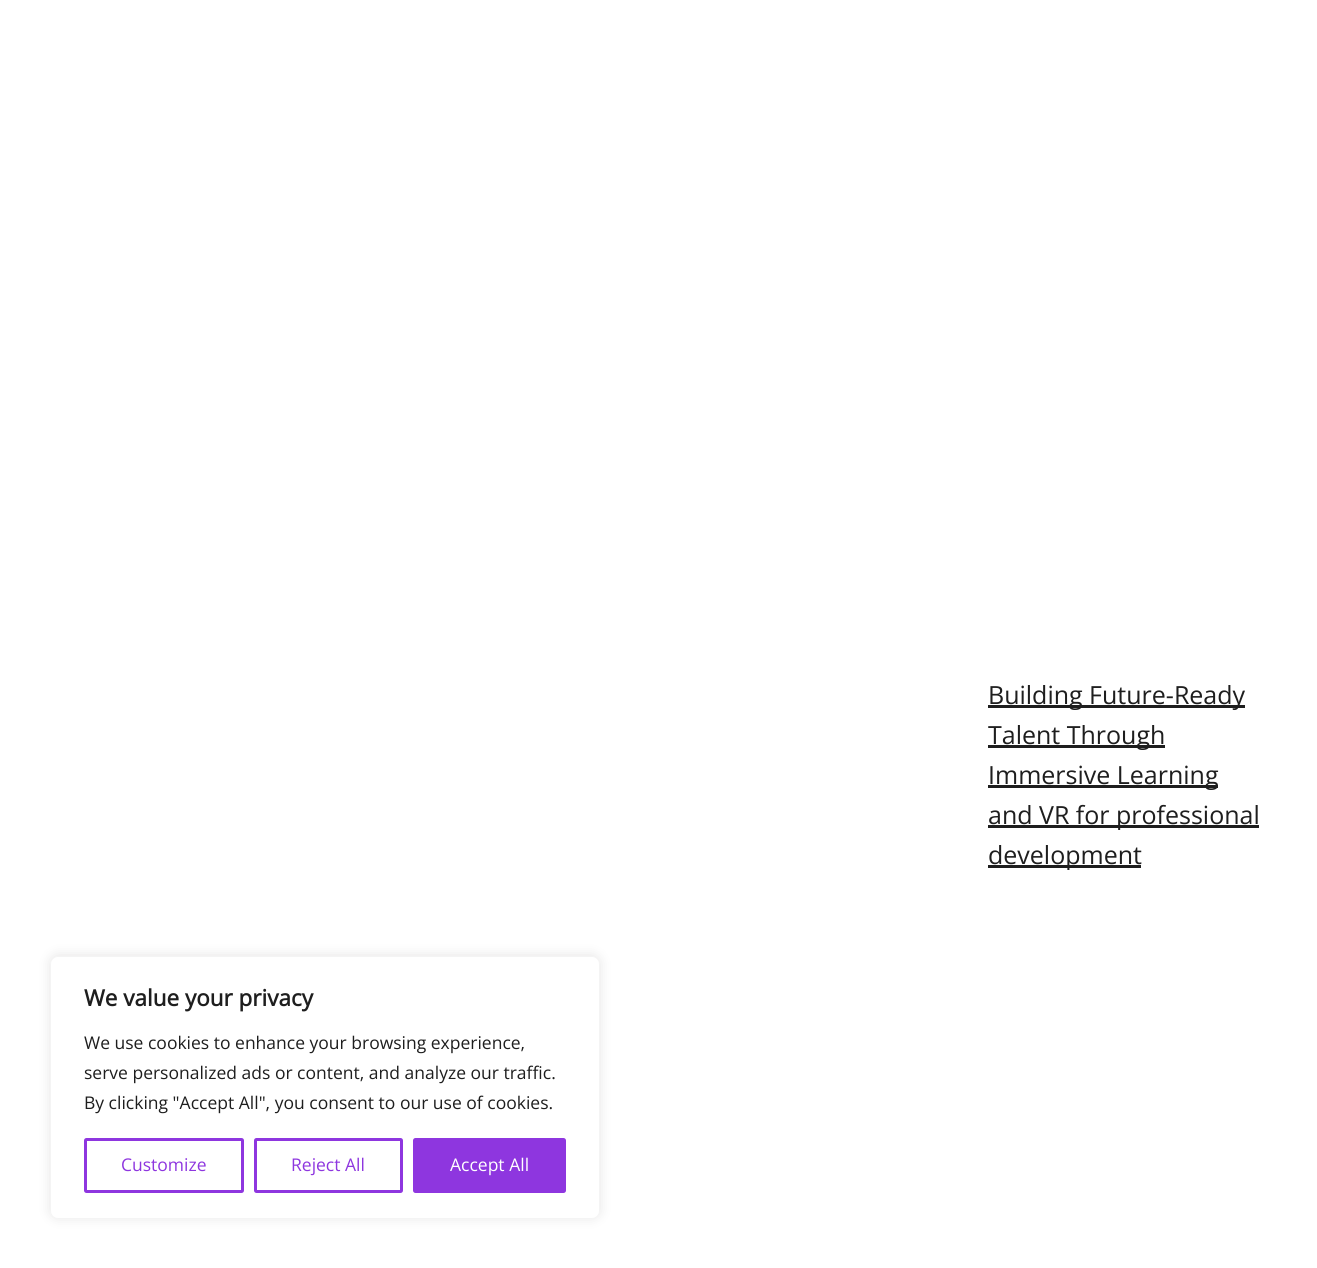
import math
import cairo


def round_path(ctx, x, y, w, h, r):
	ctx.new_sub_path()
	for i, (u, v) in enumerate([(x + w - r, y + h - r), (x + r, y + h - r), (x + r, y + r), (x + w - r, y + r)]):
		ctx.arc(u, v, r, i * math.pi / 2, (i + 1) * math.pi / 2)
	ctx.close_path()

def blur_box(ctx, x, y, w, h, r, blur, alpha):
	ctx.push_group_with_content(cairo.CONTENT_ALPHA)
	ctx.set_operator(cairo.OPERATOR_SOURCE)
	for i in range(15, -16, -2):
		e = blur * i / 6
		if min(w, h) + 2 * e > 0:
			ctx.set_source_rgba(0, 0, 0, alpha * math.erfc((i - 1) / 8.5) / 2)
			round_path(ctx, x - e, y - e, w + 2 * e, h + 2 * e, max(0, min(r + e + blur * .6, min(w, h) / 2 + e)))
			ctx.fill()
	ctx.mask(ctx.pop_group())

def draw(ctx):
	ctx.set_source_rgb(1, 1, 1)
	ctx.paint()
	ctx.set_source_rgb(0.118, 0.118, 0.118)
	ctx.rectangle(988, 705, 257, 3)
	ctx.fill()
	ctx.select_font_face('Open Sans')
	ctx.set_font_size(25)
	ctx.move_to(988, 704)
	ctx.show_text('Building Future-Ready')
	ctx.rectangle(988, 745, 177, 3)
	ctx.fill()
	ctx.move_to(988, 744)
	ctx.show_text('Talent Through')
	ctx.rectangle(988, 785, 230, 3)
	ctx.fill()
	ctx.move_to(988, 784)
	ctx.show_text('Immersive Learning')
	ctx.rectangle(988, 825, 271, 3)
	ctx.fill()
	ctx.move_to(988, 824)
	ctx.show_text('and VR for professional')
	ctx.rectangle(988, 865, 153, 3)
	ctx.fill()
	ctx.move_to(988, 864)
	ctx.show_text('development')
	ctx.set_source_rgb(0.675, 0.671, 0.671)
	blur_box(ctx, 50, 955, 550, 263, 8, 6, 0.3)
	ctx.set_source_rgb(1, 1, 1)
	round_path(ctx, 50.5, 956.5, 549, 262, 7.5)
	ctx.fill_preserve()
	ctx.set_source_rgb(0.957, 0.957, 0.957)
	ctx.set_line_width(1)
	ctx.stroke()
	ctx.select_font_face('Open Sans', cairo.FONT_SLANT_NORMAL, cairo.FONT_WEIGHT_BOLD)
	ctx.set_font_size(22.5)
	ctx.set_source_rgb(0.118, 0.118, 0.118)
	ctx.move_to(84, 1006)
	ctx.show_text('We value your privacy')
	ctx.select_font_face('Open Sans')
	ctx.set_font_size(17.5)
	for x, y, s in [
		(84, 1049, 'We use cookies to enhance your browsing experience,'),
		(84, 1079, 'serve personalized ads or content, and analyze our traffic.'),
		(84, 1109, 'By clicking "Accept All", you consent to our use of cookies.'),
	]:
		ctx.move_to(x, y)
		ctx.show_text(s)
	round_path(ctx, 85.5, 1139.5, 157, 52, 1)
	ctx.set_source_rgb(0.557, 0.212, 0.875)
	ctx.set_line_width(3)
	ctx.stroke()
	ctx.move_to(121, 1171)
	ctx.show_text('Customize')
	round_path(ctx, 255.5, 1139.5, 146, 52, 1)
	ctx.stroke()
	ctx.move_to(291, 1171)
	ctx.show_text('Reject All')
	round_path(ctx, 414.5, 1139.5, 150, 52, 1)
	ctx.fill_preserve()
	ctx.stroke()
	ctx.set_source_rgb(1, 1, 1)
	ctx.move_to(450, 1171)
	ctx.show_text('Accept All')


surface = cairo.ImageSurface(cairo.FORMAT_RGB24, 1317, 1268)
ctx = cairo.Context(surface)
options = cairo.FontOptions()
options.set_hint_metrics(cairo.HINT_METRICS_OFF)
options.set_hint_style(cairo.HINT_STYLE_NONE)
ctx.set_font_options(options)
ctx.set_miter_limit(4)
draw(ctx)
surface.write_to_png('image.png')
